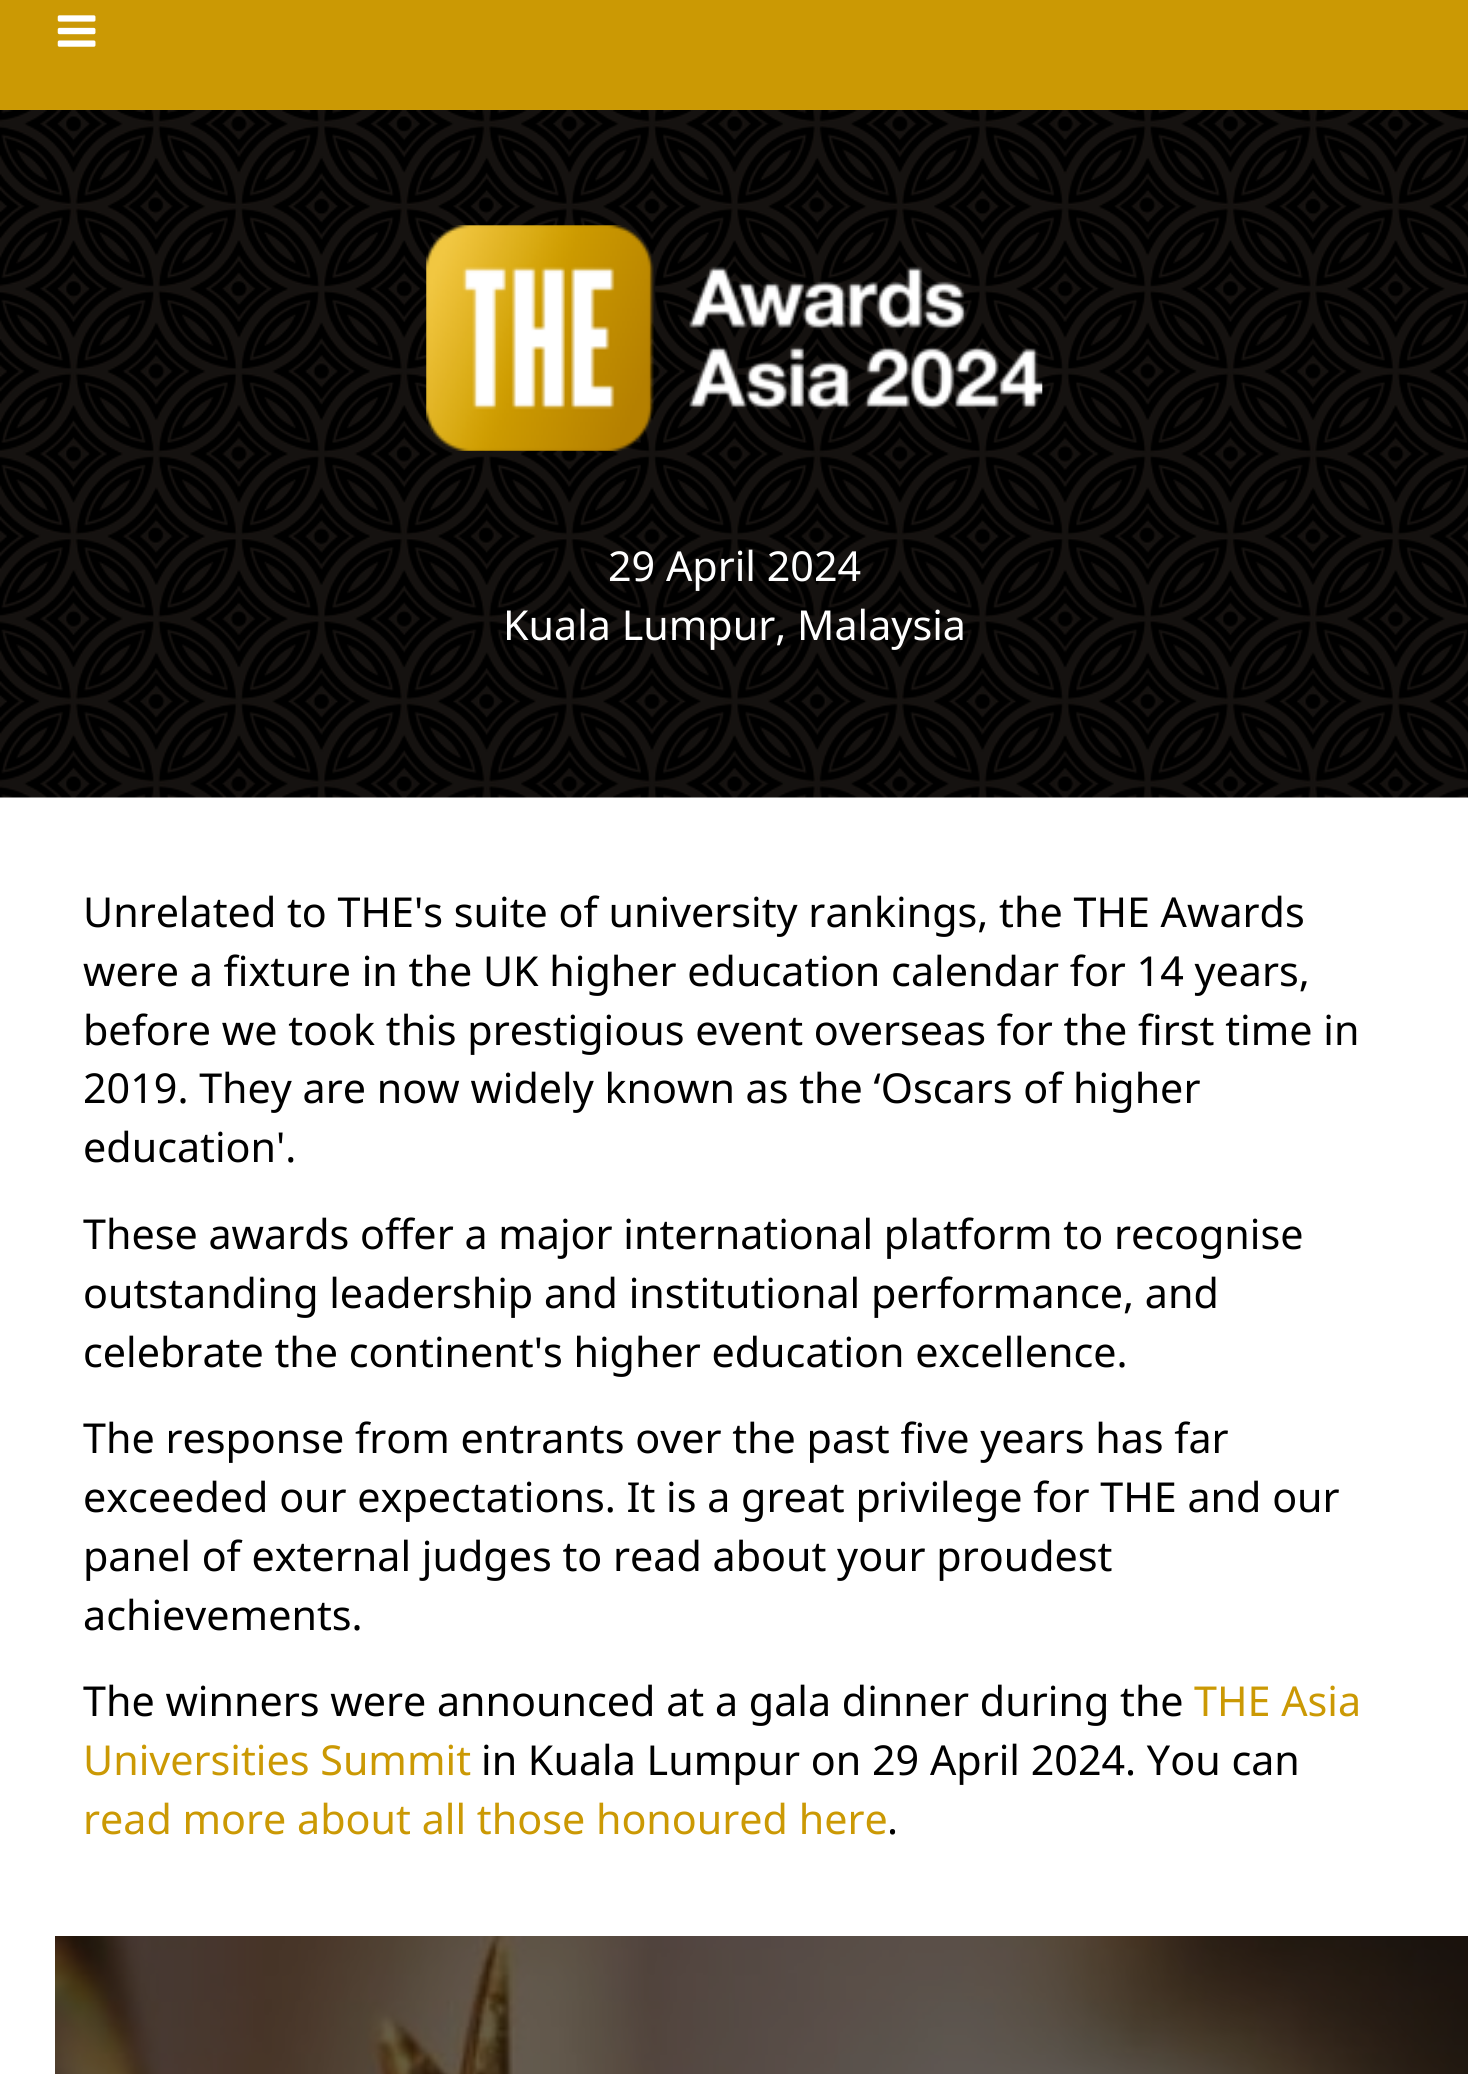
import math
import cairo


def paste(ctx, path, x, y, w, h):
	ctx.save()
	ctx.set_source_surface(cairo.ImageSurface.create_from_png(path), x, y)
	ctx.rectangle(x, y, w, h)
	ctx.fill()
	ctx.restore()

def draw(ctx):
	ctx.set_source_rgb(1, 1, 1)
	ctx.paint()
	ctx.set_source_rgb(0.796, 0.6, 0.016)
	ctx.rectangle(0, 0, 1468, 110)
	ctx.fill()
	paste(ctx, 'media/1.png', 57, 15, 39, 32)
	paste(ctx, 'media/2.png', 0, 110, 1468, 688)
	paste(ctx, 'media/3.png', 426, 225, 617, 226)
	ctx.select_font_face('Noto Sans')
	ctx.set_font_size(41.25)
	ctx.set_source_rgb(1, 1, 1)
	ctx.move_to(608, 581)
	ctx.show_text('29 April 2024')
	ctx.move_to(503, 640)
	ctx.show_text('Kuala Lumpur, Malaysia')
	ctx.set_source_rgb(0, 0, 0)
	for x, y, s in [
		(83, 927, 'Unrelated to THE\'s suite of university rankings, the THE Awards'),
		(83, 986, 'were a fixture in the UK higher education calendar for 14 years,'),
		(83, 1045, 'before we took this prestigious event overseas for the first time in'),
		(83, 1103, '2019. They are now widely known as the ‘Oscars of higher'),
		(83, 1162, 'education\'.'),
		(83, 1249, 'These awards offer a major international platform to recognise'),
		(83, 1308, 'outstanding leadership and institutional performance, and'),
		(83, 1367, 'celebrate the continent\'s higher education excellence.'),
		(83, 1453, 'The response from entrants over the past five years has far'),
		(83, 1512, 'exceeded our expectations. It is a great privilege for THE and our'),
		(83, 1571, 'panel of external judges to read about your proudest'),
		(83, 1630, 'achievements.'),
		(83, 1716, 'The winners were announced at a gala dinner during the'),
	]:
		ctx.move_to(x, y)
		ctx.show_text(s)
	ctx.set_source_rgb(0.796, 0.6, 0.016)
	ctx.move_to(1194, 1716)
	ctx.show_text('THE Asia')
	ctx.move_to(83, 1775)
	ctx.show_text('Universities Summit')
	ctx.set_source_rgb(0, 0, 0)
	ctx.move_to(481, 1775)
	ctx.show_text('in Kuala Lumpur on 29 April 2024. You can')
	ctx.set_source_rgb(0.796, 0.6, 0.016)
	ctx.move_to(83, 1834)
	ctx.show_text('read more about all those honoured here')
	ctx.set_source_rgb(0, 0, 0)
	ctx.move_to(887, 1834)
	ctx.show_text('.')
	paste(ctx, 'media/4.png', 55, 1936, 1413, 138)


surface = cairo.ImageSurface(cairo.FORMAT_RGB24, 1468, 2074)
ctx = cairo.Context(surface)
options = cairo.FontOptions()
options.set_hint_metrics(cairo.HINT_METRICS_OFF)
options.set_hint_style(cairo.HINT_STYLE_NONE)
ctx.set_font_options(options)
ctx.set_miter_limit(4)
draw(ctx)
surface.write_to_png('image.png')
